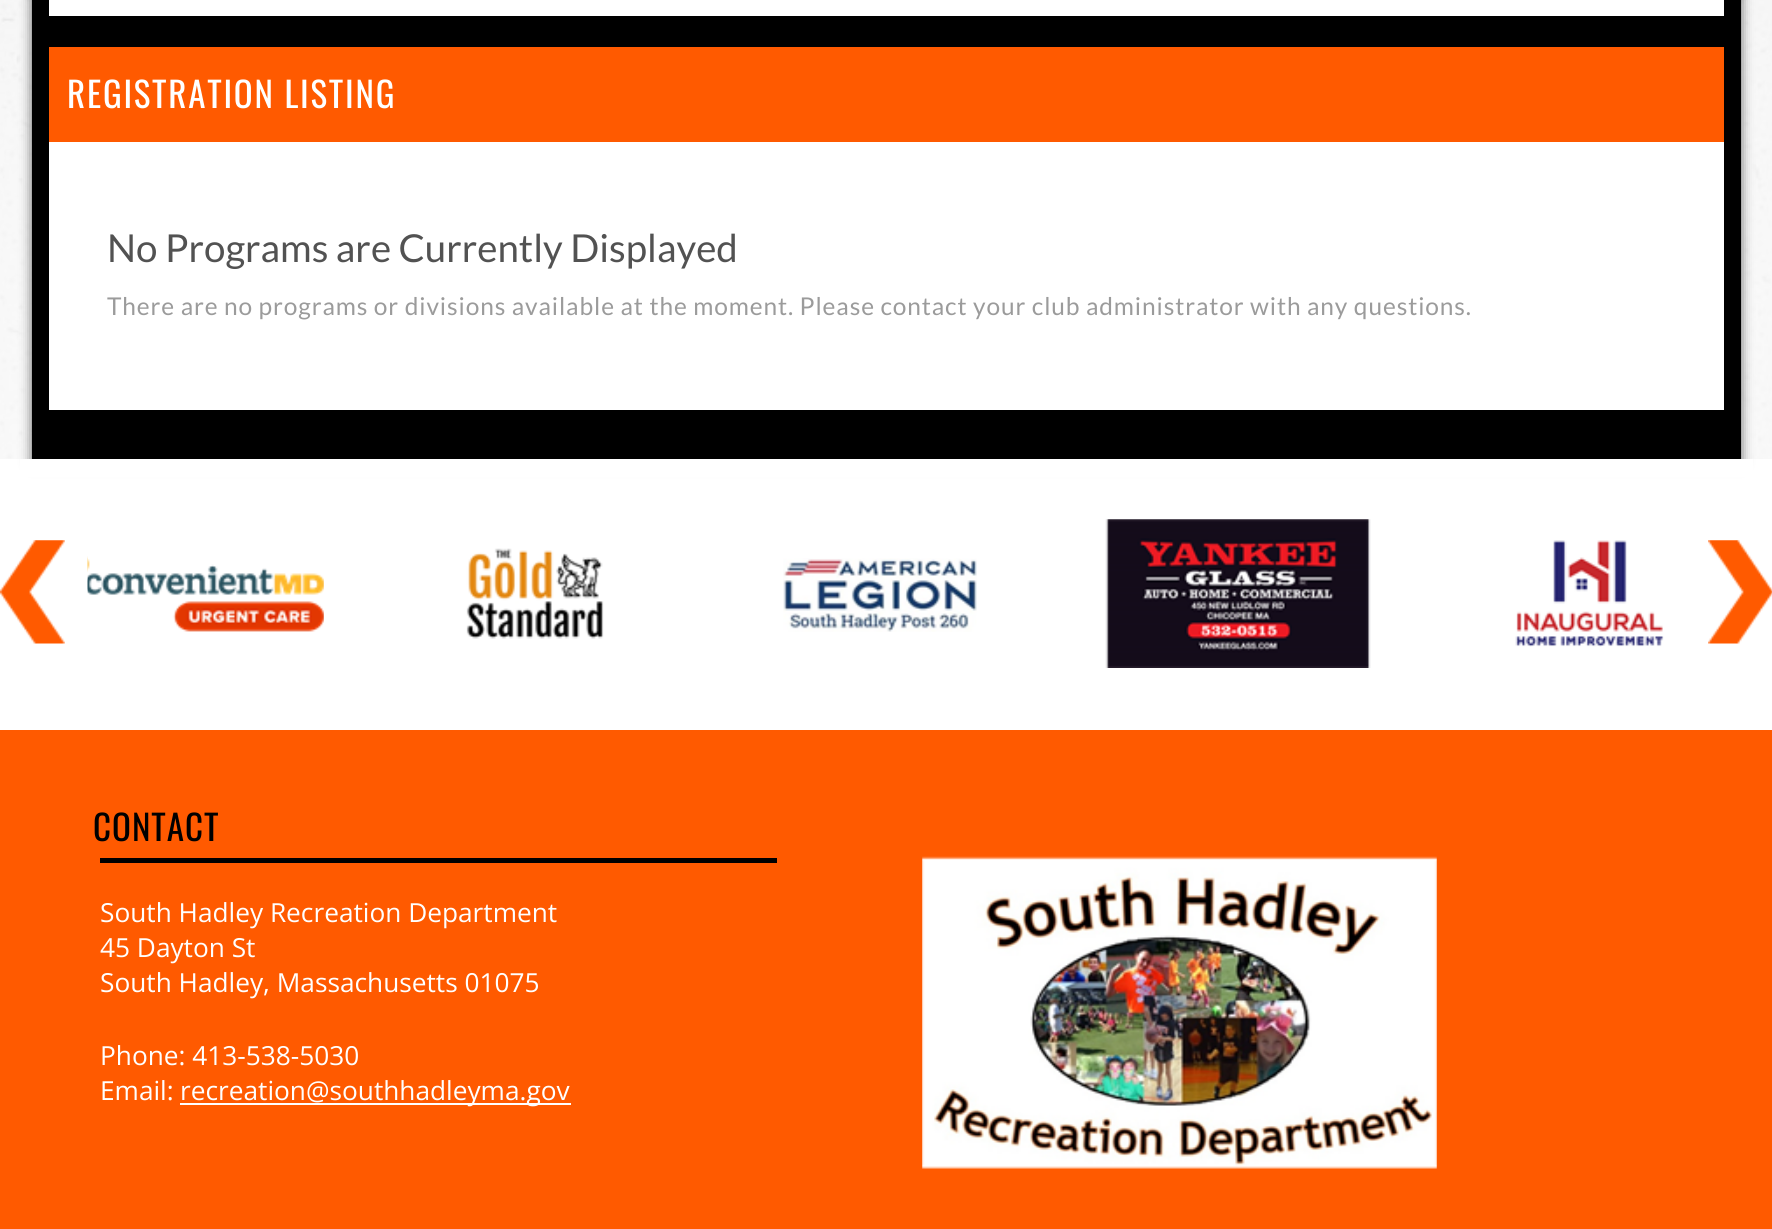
import math
import cairo


def write_spaced(ctx, x, y, s, letter, word):
	ctx.move_to(x, y)
	for ch in s:
		ctx.show_text(ch)
		ctx.rel_move_to(letter + word * (ch == ' '), 0)

def round_path(ctx, x, y, w, h, r):
	ctx.new_sub_path()
	for i, (u, v) in enumerate([(x + w - r, y + h - r), (x + r, y + h - r), (x + r, y + r), (x + w - r, y + r)]):
		ctx.arc(u, v, r, i * math.pi / 2, (i + 1) * math.pi / 2)
	ctx.close_path()

def blur_box(ctx, x, y, w, h, r, blur, alpha):
	ctx.push_group_with_content(cairo.CONTENT_ALPHA)
	ctx.set_operator(cairo.OPERATOR_SOURCE)
	for i in range(15, -16, -2):
		e = blur * i / 6
		if min(w, h) + 2 * e > 0:
			ctx.set_source_rgba(0, 0, 0, alpha * math.erfc((i - 1) / 8.5) / 2)
			round_path(ctx, x - e, y - e, w + 2 * e, h + 2 * e, max(0, min(r + e + blur * .6, min(w, h) / 2 + e)))
			ctx.fill()
	ctx.mask(ctx.pop_group())

def paste(ctx, path, x, y, w, h):
	ctx.save()
	ctx.set_source_surface(cairo.ImageSurface.create_from_png(path), x, y)
	ctx.rectangle(x, y, w, h)
	ctx.fill()
	ctx.restore()

def draw(ctx):
	ctx.set_source_rgb(1, 1, 1)
	ctx.paint()
	paste(ctx, 'media/1.png', 0, 0, 1772, 459)
	paste(ctx, 'media/2.png', 0, 0, 1772, 459)
	ctx.set_source_rgb(0, 0, 0)
	blur_box(ctx, 32, -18, 1709, 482, 0, 6, 0.61)
	ctx.set_source_rgb(0, 0, 0)
	ctx.rectangle(32, 0, 1709, 459)
	ctx.fill()
	ctx.set_source_rgb(1, 1, 1)
	ctx.rectangle(49, 0, 1675, 16)
	ctx.fill()
	ctx.set_source_rgb(1, 0.353, 0)
	ctx.rectangle(49, 47, 1675, 95)
	ctx.fill()
	ctx.select_font_face('Oswald')
	ctx.set_font_size(35)
	ctx.set_source_rgb(1, 1, 1)
	write_spaced(ctx, 67, 108, 'REGISTRATION LISTING', 1.75, 0)
	ctx.rectangle(49, 142, 1675, 268)
	ctx.fill()
	ctx.select_font_face('Lato')
	ctx.set_font_size(38.5)
	ctx.set_source_rgb(0.322, 0.322, 0.322)
	ctx.move_to(107, 262)
	ctx.show_text('No Programs are Currently Displayed')
	ctx.set_font_size(24.5)
	ctx.set_source_rgb(0.608, 0.608, 0.608)
	write_spaced(ctx, 107, 315, 'There are no programs or divisions available at the moment. Please contact your club administrator with any questions.', 0.88, 0)
	ctx.set_source_rgb(1, 1, 1)
	ctx.rectangle(20, 459, 1733, 18)
	ctx.fill()
	paste(ctx, 'media/3.png', 0, 540, 65, 104)
	paste(ctx, 'media/4.png', 87, 556, 237, 76)
	paste(ctx, 'media/5.png', 466, 548, 138, 91)
	paste(ctx, 'media/6.png', 783, 558, 194, 74)
	paste(ctx, 'media/7.png', 1105, 519, 266, 149)
	paste(ctx, 'media/8.png', 1515, 540, 149, 107)
	paste(ctx, 'media/9.png', 1708, 540, 64, 104)
	ctx.set_source_rgb(1, 0.353, 0)
	ctx.rectangle(0, 730, 1772, 499)
	ctx.fill()
	ctx.select_font_face('Oswald')
	ctx.set_font_size(35)
	ctx.set_source_rgb(0, 0, 0)
	write_spaced(ctx, 93, 841, 'CONTACT', 1, 0)
	ctx.rectangle(100, 858, 677, 5)
	ctx.fill()
	ctx.select_font_face('Open Sans')
	ctx.set_font_size(26.25)
	ctx.set_source_rgb(1, 1, 1)
	for x, y, s in [
		(100, 922, 'South Hadley Recreation Department'),
		(100, 957, '45 Dayton St'),
		(100, 992, 'South Hadley, Massachusetts 01075'),
		(100, 1065, 'Phone: 413-538-5030'),
		(100, 1100, 'Email:'),
	]:
		ctx.move_to(x, y)
		ctx.show_text(s)
	ctx.rectangle(180, 1103, 391, 2)
	ctx.fill()
	ctx.move_to(180, 1100)
	ctx.show_text('recreation@southhadleyma.gov')
	paste(ctx, 'media/10.png', 922, 856, 515, 313)


surface = cairo.ImageSurface(cairo.FORMAT_RGB24, 1772, 1229)
ctx = cairo.Context(surface)
options = cairo.FontOptions()
options.set_hint_metrics(cairo.HINT_METRICS_OFF)
options.set_hint_style(cairo.HINT_STYLE_NONE)
ctx.set_font_options(options)
ctx.set_miter_limit(4)
draw(ctx)
surface.write_to_png('image.png')
